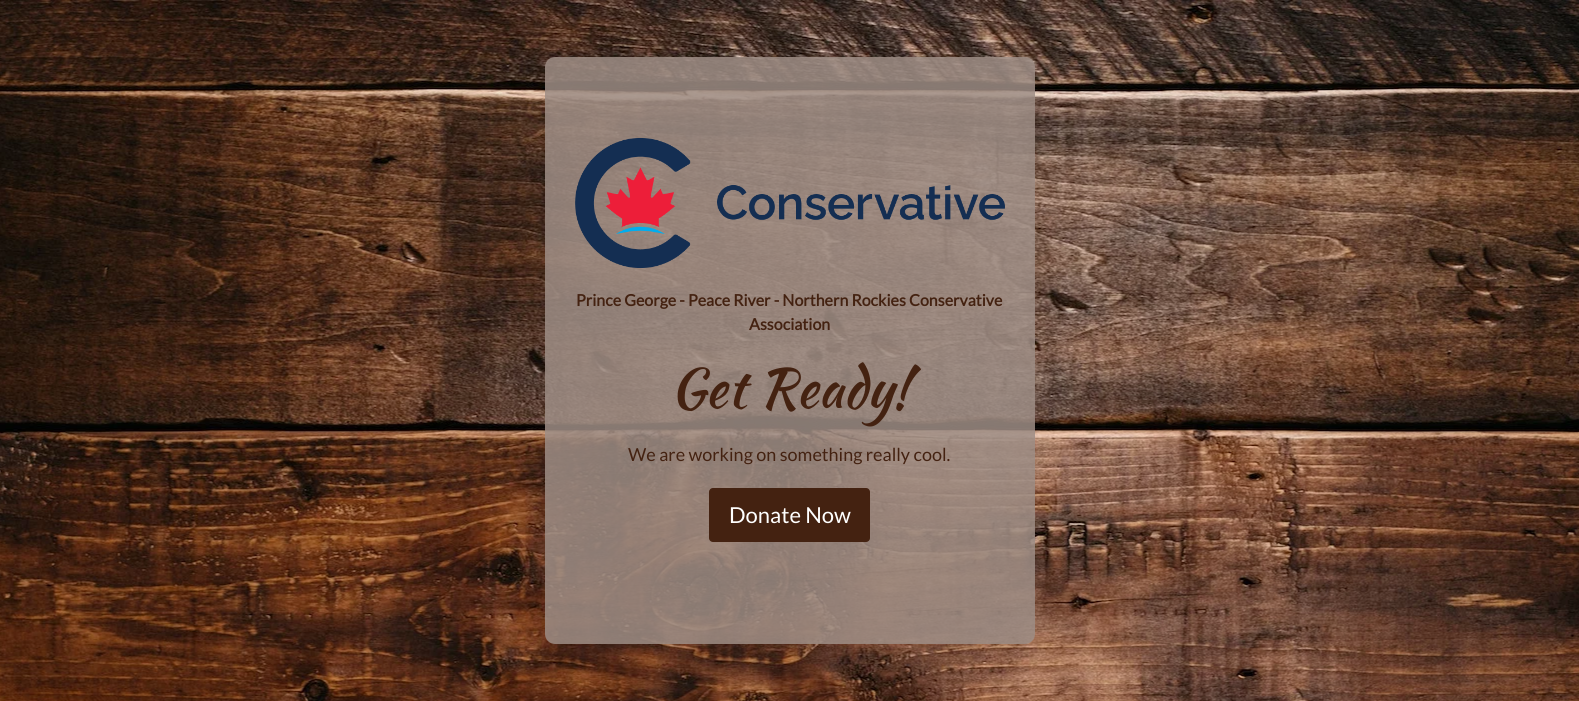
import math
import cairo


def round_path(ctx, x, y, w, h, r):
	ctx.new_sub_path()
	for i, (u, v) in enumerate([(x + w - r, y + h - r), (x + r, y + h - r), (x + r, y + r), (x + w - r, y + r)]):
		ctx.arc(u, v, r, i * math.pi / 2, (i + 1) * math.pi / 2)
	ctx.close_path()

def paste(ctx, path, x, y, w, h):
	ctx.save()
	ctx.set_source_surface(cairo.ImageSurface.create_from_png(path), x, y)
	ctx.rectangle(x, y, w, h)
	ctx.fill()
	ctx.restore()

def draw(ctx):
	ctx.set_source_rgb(1, 1, 1)
	ctx.paint()
	paste(ctx, 'media/1.png', 0, 0, 1579, 701)
	ctx.set_source_rgba(0.62, 0.553, 0.522, 0.85)
	round_path(ctx, 545, 57, 490, 587, 10)
	ctx.fill()
	paste(ctx, 'media/2.png', 575, 138, 430, 130)
	ctx.select_font_face('Lato', cairo.FONT_SLANT_NORMAL, cairo.FONT_WEIGHT_BOLD)
	ctx.set_font_size(16)
	ctx.set_source_rgb(0.267, 0.133, 0.067)
	ctx.move_to(576, 306)
	ctx.show_text('Prince George - Peace River - Northern Rockies Conservative')
	ctx.move_to(749, 330)
	ctx.show_text('Association')
	ctx.select_font_face('Kaushan Script')
	ctx.set_font_size(54)
	ctx.move_to(670, 407)
	ctx.show_text('Get Ready!')
	ctx.select_font_face('Lato')
	ctx.set_font_size(18)
	ctx.move_to(628, 461)
	ctx.show_text('We are working on something really cool.')
	round_path(ctx, 709, 488, 161, 54, 4)
	ctx.fill()
	ctx.set_font_size(22)
	ctx.set_source_rgb(1, 1, 1)
	ctx.move_to(729, 523)
	ctx.show_text('Donate Now')


surface = cairo.ImageSurface(cairo.FORMAT_RGB24, 1579, 701)
ctx = cairo.Context(surface)
options = cairo.FontOptions()
options.set_hint_metrics(cairo.HINT_METRICS_OFF)
options.set_hint_style(cairo.HINT_STYLE_NONE)
ctx.set_font_options(options)
ctx.set_miter_limit(4)
draw(ctx)
surface.write_to_png('image.png')
